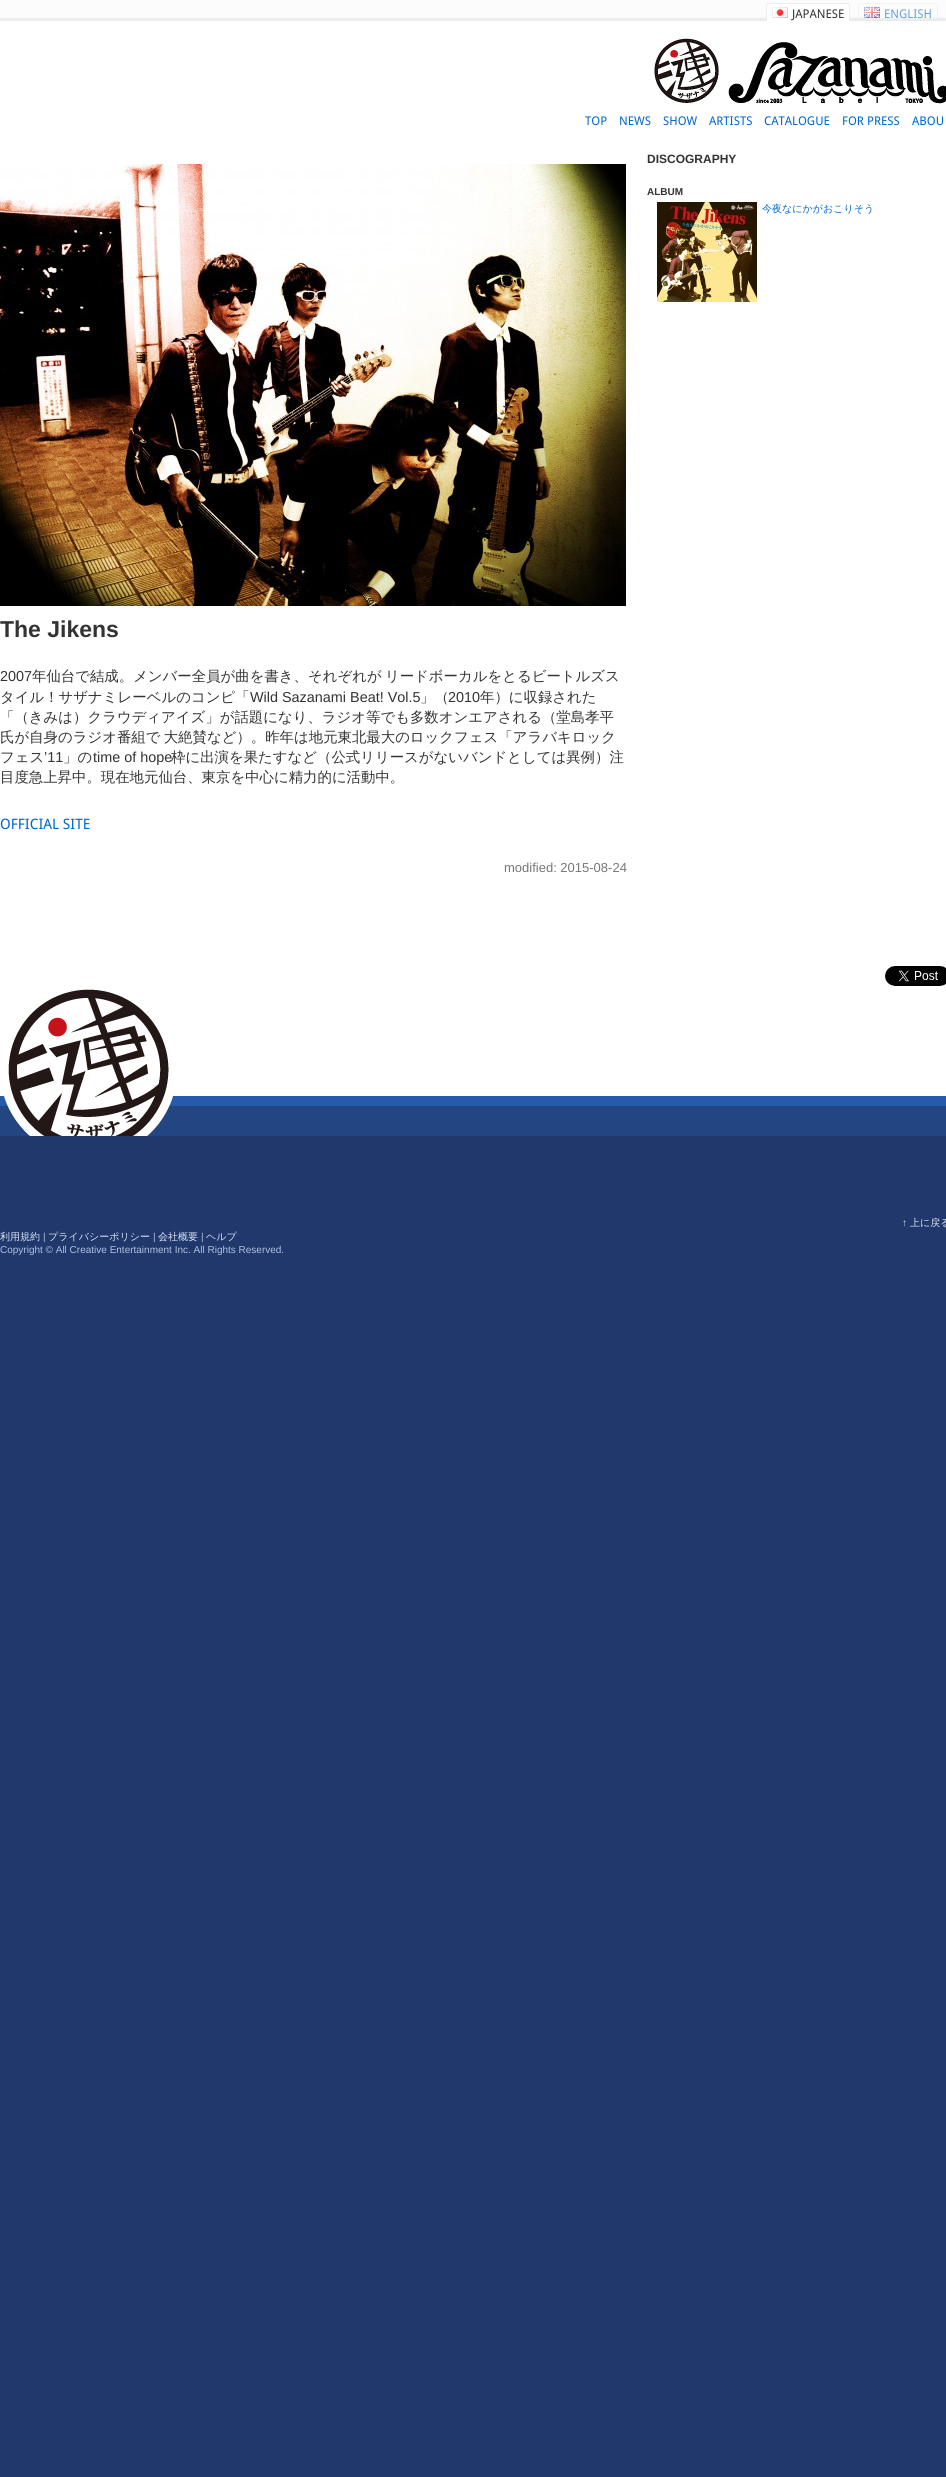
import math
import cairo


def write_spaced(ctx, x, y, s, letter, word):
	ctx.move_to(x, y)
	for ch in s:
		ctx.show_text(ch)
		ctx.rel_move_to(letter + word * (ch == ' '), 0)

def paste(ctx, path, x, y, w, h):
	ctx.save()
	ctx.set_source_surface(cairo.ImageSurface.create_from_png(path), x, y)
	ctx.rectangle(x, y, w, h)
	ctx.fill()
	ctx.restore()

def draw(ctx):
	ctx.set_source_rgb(0.129, 0.22, 0.427)
	ctx.paint()
	ctx.set_source_rgb(1, 1, 1)
	ctx.rectangle(0, 21, 946, 1075)
	ctx.fill()
	gradient = cairo.LinearGradient(0, 21, 0, 0)
	gradient.add_color_stop_rgba(0.09, 0.922, 0.922, 0.922, 1)
	gradient.add_color_stop_rgba(0.2, 0.988, 0.988, 0.988, 1)
	ctx.set_source(gradient)
	ctx.rectangle(0, 0, 946, 21)
	ctx.fill()
	ctx.set_source_rgb(1, 1, 1)
	ctx.new_path()
	ctx.move_to(769, 3)
	ctx.line_to(847, 3)
	ctx.curve_to(848.5, 3, 850, 4.5, 850, 6)
	ctx.line_to(850, 21)
	ctx.line_to(766, 21)
	ctx.line_to(766, 6)
	ctx.curve_to(766, 4.5, 767.5, 3, 769, 3)
	ctx.close_path()
	ctx.fill()
	paste(ctx, 'media/1.png', 772, 7, 16, 11)
	ctx.set_source_rgb(0.922, 0.922, 0.922)
	ctx.set_fill_rule(cairo.FILL_RULE_EVEN_ODD)
	ctx.new_path()
	ctx.move_to(769, 3)
	ctx.line_to(847, 3)
	ctx.curve_to(849, 3, 850, 4, 850, 6)
	ctx.line_to(850, 21)
	ctx.line_to(766, 21)
	ctx.line_to(766, 6)
	ctx.curve_to(766, 4, 767, 3, 769, 3)
	ctx.close_path()
	ctx.move_to(769, 4)
	ctx.line_to(847, 4)
	ctx.curve_to(848, 4, 849, 5, 849, 6)
	ctx.line_to(849, 21)
	ctx.line_to(767, 21)
	ctx.line_to(767, 6)
	ctx.curve_to(767, 5, 768, 4, 769, 4)
	ctx.close_path()
	ctx.fill()
	ctx.select_font_face('Droid Sans')
	ctx.set_font_size(12)
	ctx.set_source_rgb(0.2, 0.2, 0.2)
	ctx.move_to(792, 18)
	ctx.show_text('JAPANESE')
	paste(ctx, 'media/2.png', 864, 7, 16, 11)
	ctx.set_source_rgba(0.922, 0.922, 0.922, 0.6)
	ctx.new_path()
	ctx.move_to(861, 3)
	ctx.line_to(935, 3)
	ctx.curve_to(937, 3, 938, 4, 938, 6)
	ctx.line_to(938, 21)
	ctx.line_to(858, 21)
	ctx.line_to(858, 6)
	ctx.curve_to(858, 4, 859, 3, 861, 3)
	ctx.close_path()
	ctx.move_to(861, 4)
	ctx.line_to(935, 4)
	ctx.curve_to(936, 4, 937, 5, 937, 6)
	ctx.line_to(937, 21)
	ctx.line_to(859, 21)
	ctx.line_to(859, 6)
	ctx.curve_to(859, 5, 860, 4, 861, 4)
	ctx.close_path()
	ctx.fill()
	ctx.set_source_rgb(0.392, 0.635, 0.875)
	ctx.move_to(884, 18)
	ctx.show_text('ENGLISH')
	paste(ctx, 'media/3.png', 654, 38, 292, 66)
	ctx.set_source_rgb(0, 0.4, 0.8)
	for x, y, s in [
		(585, 125, 'TOP'),
		(619, 125, 'NEWS'),
		(663, 125, 'SHOW'),
		(709, 125, 'ARTISTS'),
		(764, 125, 'CATALOGUE'),
		(842, 125, 'FOR PRESS'),
		(912, 125, 'ABOU'),
	]:
		ctx.move_to(x, y)
		ctx.show_text(s)
	ctx.select_font_face('Liberation Sans', cairo.FONT_SLANT_NORMAL, cairo.FONT_WEIGHT_BOLD)
	ctx.set_source_rgb(0.2, 0.2, 0.2)
	ctx.move_to(647, 163)
	ctx.show_text('DISCOGRAPHY')
	ctx.set_font_size(10)
	ctx.move_to(647, 195)
	ctx.show_text('ALBUM')
	paste(ctx, 'media/4.png', 657, 202, 100, 100)
	ctx.select_font_face('WenQuanYi Zen Hei Medium')
	ctx.set_source_rgb(0, 0.4, 0.8)
	ctx.move_to(762, 212)
	ctx.show_text('今夜なにかがおこりそう')
	paste(ctx, 'media/5.png', 0, 164, 626, 442)
	ctx.select_font_face('Liberation Sans', cairo.FONT_SLANT_NORMAL, cairo.FONT_WEIGHT_BOLD)
	ctx.set_font_size(23)
	ctx.set_source_rgb(0.2, 0.2, 0.2)
	ctx.move_to(0, 637)
	ctx.show_text('The Jikens')
	ctx.select_font_face('Liberation Sans')
	ctx.set_font_size(14.4)
	ctx.move_to(0, 681)
	ctx.show_text('2007')
	ctx.select_font_face('WenQuanYi Zen Hei Medium')
	write_spaced(ctx, 32, 681, '年仙台で結成。メンバー全員が曲を書き、それぞれが リードボーカルをとるビートルズス', 0, -1)
	ctx.move_to(0, 702)
	ctx.show_text('タイル！サザナミレーベルのコンピ「')
	ctx.select_font_face('Liberation Sans')
	ctx.move_to(250, 702)
	ctx.show_text('Wild Sazanami Beat! Vol.5')
	ctx.select_font_face('WenQuanYi Zen Hei Medium')
	ctx.move_to(420, 702)
	ctx.show_text('」（')
	ctx.select_font_face('Liberation Sans')
	ctx.move_to(448, 702)
	ctx.show_text('2010')
	ctx.select_font_face('WenQuanYi Zen Hei Medium')
	ctx.move_to(480, 702)
	ctx.show_text('年）に収録された')
	ctx.move_to(0, 722)
	ctx.show_text('「（きみは）クラウディアイズ」が話題になり、ラジオ等でも多数オンエアされる（堂島孝平')
	write_spaced(ctx, 0, 742, '氏が自身のラジオ番組で 大絶賛など）。昨年は地元東北最大のロックフェス「アラバキロック', 0, -1)
	ctx.move_to(0, 762)
	ctx.show_text('フェス')
	ctx.select_font_face('Liberation Sans')
	ctx.move_to(44, 762)
	ctx.show_text('’11')
	ctx.select_font_face('WenQuanYi Zen Hei Medium')
	ctx.move_to(63, 762)
	ctx.show_text('」の')
	ctx.select_font_face('Liberation Sans')
	ctx.move_to(93, 762)
	ctx.show_text('time of hope')
	ctx.select_font_face('WenQuanYi Zen Hei Medium')
	ctx.move_to(171, 762)
	ctx.show_text('枠に出演を果たすなど（公式リリースがないバンドとしては異例）注')
	ctx.move_to(0, 782)
	ctx.show_text('目度急上昇中。現在地元仙台、東京を中心に精力的に活動中。')
	ctx.select_font_face('Droid Sans')
	ctx.set_source_rgb(0, 0.4, 0.8)
	ctx.move_to(0, 829)
	ctx.show_text('OFFICIAL SITE')
	ctx.select_font_face('Liberation Sans')
	ctx.set_font_size(13)
	ctx.set_source_rgb(0.467, 0.467, 0.467)
	ctx.move_to(504, 872)
	ctx.show_text('modified: 2015-08-24')
	paste(ctx, 'media/6.png', 885, 966, 61, 20)
	ctx.set_source_rgb(0.149, 0.357, 0.671)
	ctx.rectangle(0, 1096, 946, 10)
	ctx.fill()
	ctx.set_source_rgb(0.137, 0.275, 0.514)
	ctx.rectangle(0, 1106, 946, 30)
	ctx.fill()
	paste(ctx, 'media/7.png', 4, 989, 169, 147)
	ctx.set_font_size(10)
	ctx.set_source_rgb(0.867, 0.902, 0.957)
	ctx.move_to(902, 1226)
	ctx.show_text('↑')
	ctx.select_font_face('WenQuanYi Zen Hei Medium')
	ctx.move_to(910, 1226)
	ctx.show_text('上に戻る')
	ctx.move_to(0, 1240)
	ctx.show_text('利用規約')
	ctx.select_font_face('Liberation Sans')
	ctx.set_source_rgb(0.682, 0.757, 0.867)
	ctx.move_to(43, 1240)
	ctx.show_text('|')
	ctx.select_font_face('WenQuanYi Zen Hei Medium')
	ctx.set_source_rgb(0.867, 0.902, 0.957)
	ctx.move_to(48, 1240)
	ctx.show_text('プライバシーポリシー')
	ctx.select_font_face('Liberation Sans')
	ctx.set_source_rgb(0.682, 0.757, 0.867)
	ctx.move_to(153, 1240)
	ctx.show_text('|')
	ctx.select_font_face('WenQuanYi Zen Hei Medium')
	ctx.set_source_rgb(0.867, 0.902, 0.957)
	ctx.move_to(158, 1240)
	ctx.show_text('会社概要')
	ctx.select_font_face('Liberation Sans')
	ctx.set_source_rgb(0.682, 0.757, 0.867)
	ctx.move_to(201, 1240)
	ctx.show_text('|')
	ctx.select_font_face('WenQuanYi Zen Hei Medium')
	ctx.set_source_rgb(0.867, 0.902, 0.957)
	ctx.move_to(206, 1240)
	ctx.show_text('ヘルプ')
	ctx.select_font_face('Liberation Sans')
	ctx.set_source_rgb(0.682, 0.757, 0.867)
	ctx.move_to(0, 1253)
	ctx.show_text('Copyright © All Creative Entertainment Inc. All Rights Reserved.')


surface = cairo.ImageSurface(cairo.FORMAT_RGB24, 946, 2477)
ctx = cairo.Context(surface)
options = cairo.FontOptions()
options.set_hint_metrics(cairo.HINT_METRICS_OFF)
options.set_hint_style(cairo.HINT_STYLE_NONE)
ctx.set_font_options(options)
ctx.set_miter_limit(4)
draw(ctx)
surface.write_to_png('image.png')
